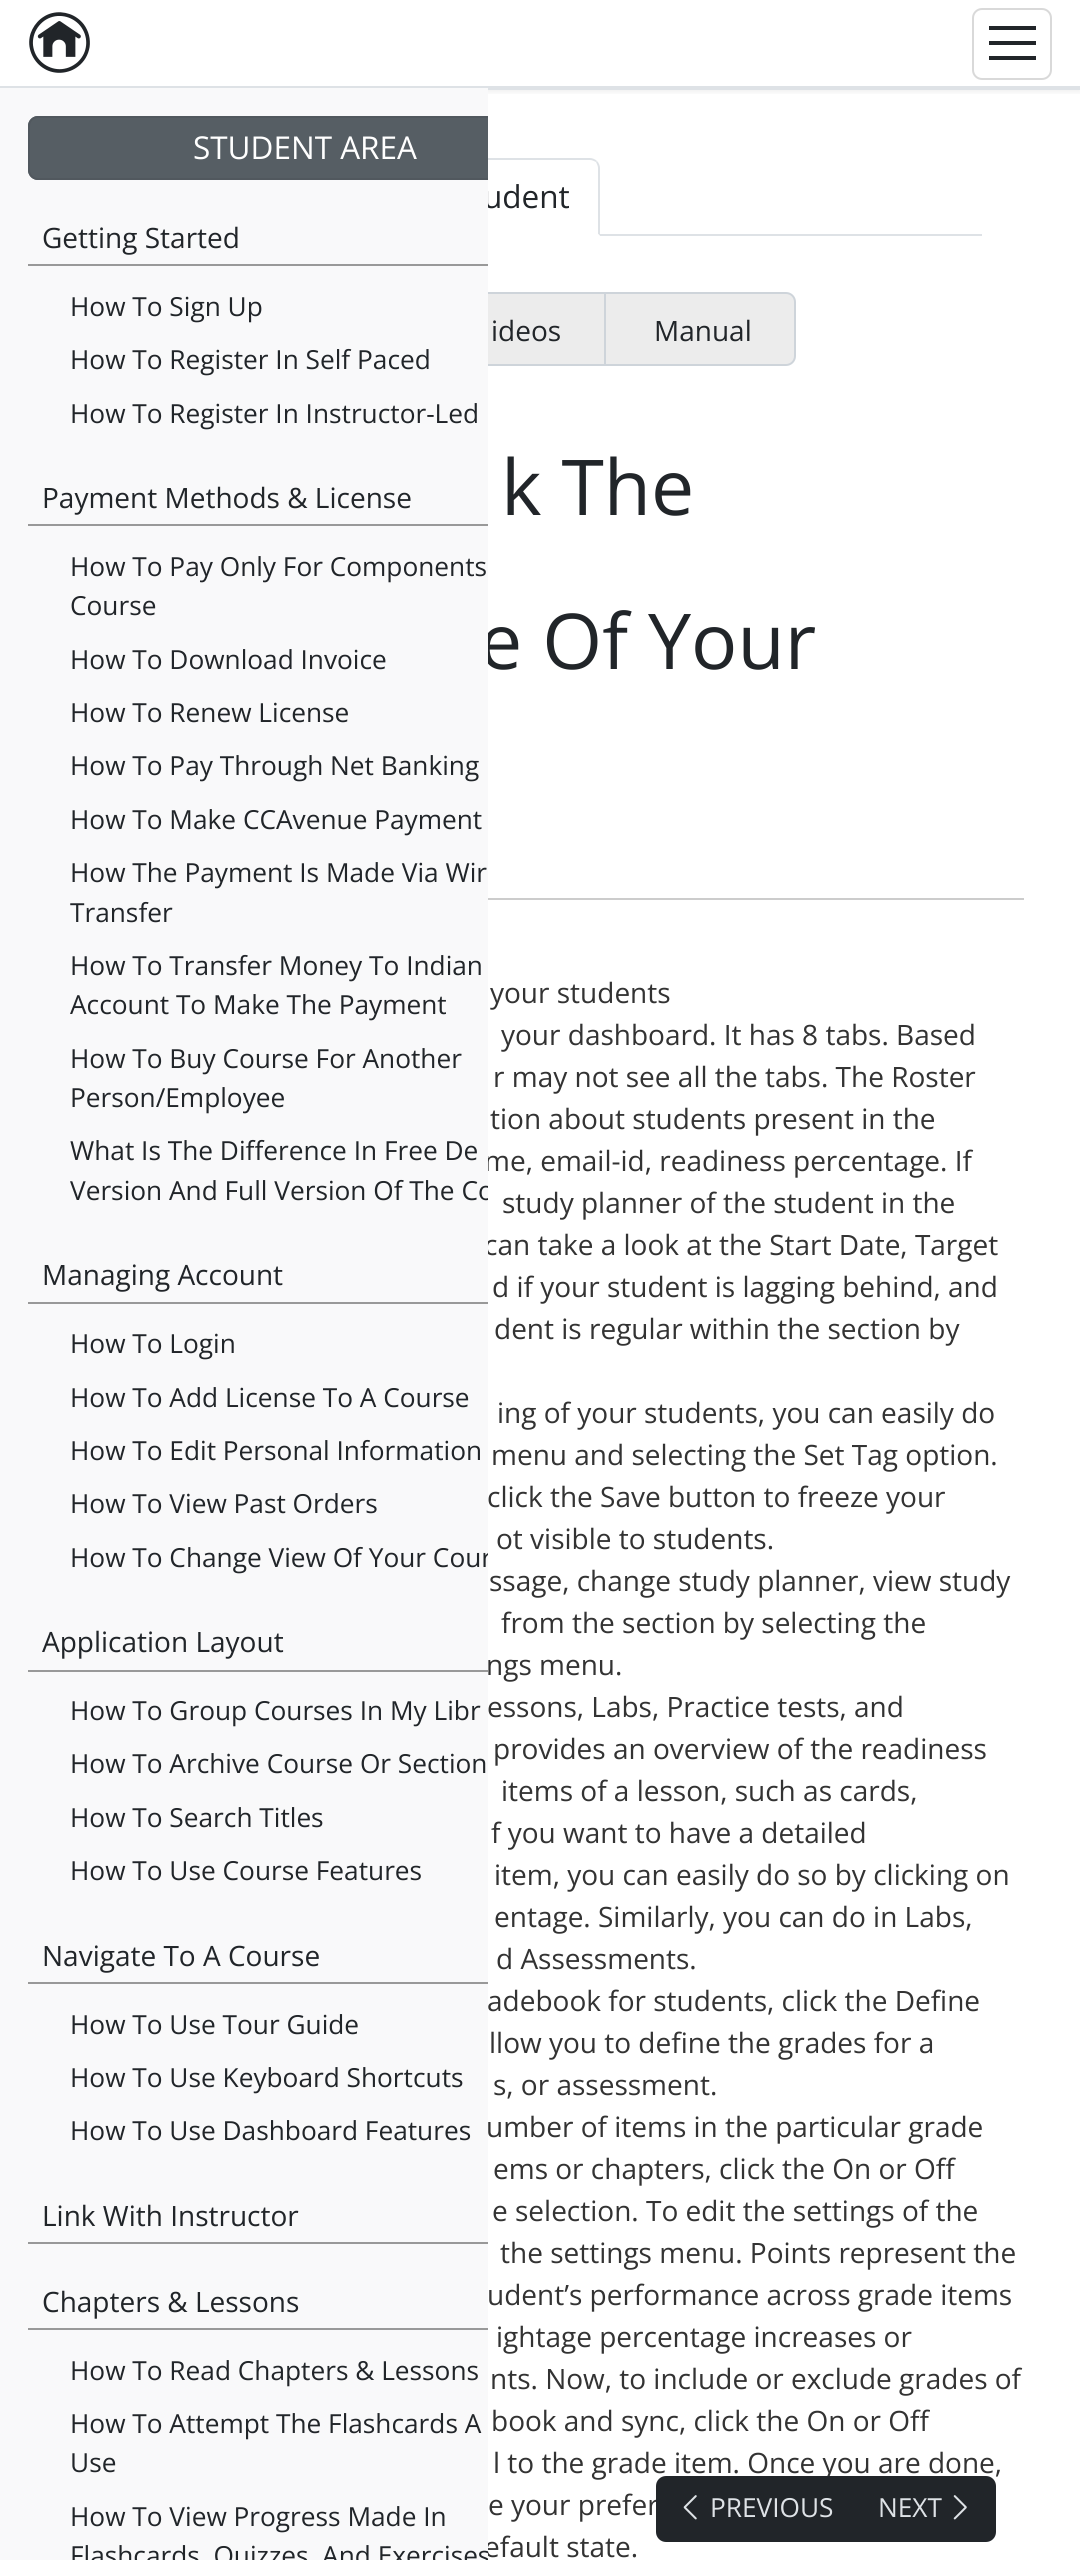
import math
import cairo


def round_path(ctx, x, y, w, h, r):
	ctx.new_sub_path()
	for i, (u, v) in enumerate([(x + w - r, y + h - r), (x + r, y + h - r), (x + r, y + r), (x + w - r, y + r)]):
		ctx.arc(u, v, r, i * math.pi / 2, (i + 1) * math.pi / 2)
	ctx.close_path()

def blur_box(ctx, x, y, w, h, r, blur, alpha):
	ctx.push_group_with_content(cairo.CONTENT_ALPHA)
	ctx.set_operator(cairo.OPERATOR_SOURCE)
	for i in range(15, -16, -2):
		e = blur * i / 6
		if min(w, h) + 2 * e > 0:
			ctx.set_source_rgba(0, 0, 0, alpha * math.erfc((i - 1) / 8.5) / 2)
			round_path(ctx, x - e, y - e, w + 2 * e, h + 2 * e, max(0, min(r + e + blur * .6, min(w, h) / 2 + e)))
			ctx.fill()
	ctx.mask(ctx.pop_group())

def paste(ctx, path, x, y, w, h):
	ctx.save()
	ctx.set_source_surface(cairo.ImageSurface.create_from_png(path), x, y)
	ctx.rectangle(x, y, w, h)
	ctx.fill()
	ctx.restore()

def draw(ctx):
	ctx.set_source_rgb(1, 1, 1)
	ctx.paint()
	ctx.save()
	ctx.rectangle(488, 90, 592, 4)
	ctx.clip()
	ctx.set_source_rgb(0, 0, 0)
	blur_box(ctx, 0, 4, 1080, 88, 0, 3.5, 0.07)
	ctx.restore()
	ctx.set_source_rgb(0.871, 0.886, 0.902)
	ctx.rectangle(0, 86, 1080, 2)
	ctx.fill()
	paste(ctx, 'media/1.png', 29, 12, 61, 61)
	round_path(ctx, 973, 9, 78, 70, 9)
	ctx.set_source_rgb(0.851, 0.851, 0.851)
	ctx.stroke()
	ctx.set_source_rgb(0.129, 0.145, 0.161)
	ctx.new_path()
	ctx.move_to(989, 60)
	ctx.line_to(1036, 60)
	ctx.line_to(1036, 56)
	ctx.line_to(989, 56)
	ctx.close_path()
	ctx.move_to(989, 45)
	ctx.line_to(1036, 45)
	ctx.line_to(1036, 41)
	ctx.line_to(989, 41)
	ctx.close_path()
	ctx.move_to(989, 30)
	ctx.line_to(1036, 30)
	ctx.line_to(1036, 26)
	ctx.line_to(989, 26)
	ctx.close_path()
	ctx.fill()
	ctx.set_source_rgb(0.871, 0.886, 0.902)
	ctx.rectangle(488, 88, 592, 2)
	ctx.fill()
	ctx.new_path()
	ctx.move_to(428, 158)
	ctx.curve_to(426, 158, 423, 159, 421, 161)
	ctx.line_to(422, 162)
	ctx.curve_to(424, 161, 426, 160, 428, 160)
	ctx.line_to(590, 160)
	ctx.curve_to(592, 160, 594, 161, 596, 162)
	ctx.line_to(597, 161)
	ctx.curve_to(595, 159, 592, 158, 590, 158)
	ctx.close_path()
	ctx.fill()
	ctx.new_path()
	ctx.move_to(600, 236)
	ctx.line_to(600, 168)
	ctx.curve_to(600, 166, 599, 163, 597, 161)
	ctx.line_to(596, 162)
	ctx.curve_to(597, 164, 598, 166, 598, 168)
	ctx.line_to(598, 234)
	ctx.close_path()
	ctx.fill()
	ctx.set_source_rgb(1, 1, 1)
	ctx.new_path()
	ctx.move_to(600, 236)
	ctx.line_to(598, 234)
	ctx.line_to(420, 234)
	ctx.line_to(418, 236)
	ctx.close_path()
	ctx.fill()
	ctx.select_font_face('Open Sans')
	ctx.set_font_size(31.5)
	ctx.set_source_rgb(0.129, 0.145, 0.161)
	ctx.move_to(483, 208)
	ctx.show_text('udent')
	ctx.set_source_rgb(0.922, 0.922, 0.922)
	ctx.rectangle(488, 294, 116, 70)
	ctx.fill()
	ctx.rectangle(425, 293, 180, 72)
	ctx.set_source_rgb(0.808, 0.831, 0.855)
	ctx.stroke()
	ctx.set_font_size(77)
	ctx.set_source_rgb(0.129, 0.145, 0.161)
	ctx.move_to(479, 669)
	ctx.show_text('e Of Your')
	ctx.set_font_size(28)
	ctx.set_source_rgb(0.2, 0.2, 0.2)
	for x, y, s in [
		(484, 1171, 'me, email-id, readiness percentage. If'),
		(484, 1255, 'can take a look at the Start Date, Target'),
		(486, 2137, 'umber of items in the particular grade'),
		(484, 2557, 'efault state.'),
	]:
		ctx.move_to(x, y)
		ctx.show_text(s)
	ctx.set_source_rgb(0.973, 0.976, 0.98)
	ctx.rectangle(0, 88, 488, 2472)
	ctx.fill()
	ctx.set_source_rgb(0.337, 0.369, 0.392)
	ctx.new_path()
	ctx.move_to(38, 116)
	ctx.line_to(488, 116)
	ctx.line_to(488, 180)
	ctx.line_to(38, 180)
	ctx.curve_to(32.5, 180, 28, 175.5, 28, 170)
	ctx.line_to(28, 126)
	ctx.curve_to(28, 120.5, 32.5, 116, 38, 116)
	ctx.close_path()
	ctx.fill()
	ctx.save()
	ctx.rectangle(0, 88, 488, 2472)
	ctx.clip()
	round_path(ctx, 29, 117, 552, 62, 9)
	ctx.set_source_rgb(0.318, 0.345, 0.369)
	ctx.stroke()
	ctx.restore()
	ctx.set_font_size(31.5)
	ctx.set_source_rgb(1, 1, 1)
	ctx.move_to(193, 159)
	ctx.show_text('STUDENT AREA')
	ctx.set_source_rgb(0.6, 0.6, 0.6)
	ctx.rectangle(28, 264, 460, 2)
	ctx.fill()
	ctx.set_font_size(28)
	ctx.set_source_rgb(0.129, 0.145, 0.161)
	ctx.move_to(42, 248)
	ctx.show_text('Getting Started')
	ctx.set_font_size(26.25)
	for x, y, s in [
		(70, 316, 'How To Sign Up'),
		(70, 369, 'How To Register In Self Paced'),
		(70, 423, 'How To Register In Instructor-Led'),
	]:
		ctx.move_to(x, y)
		ctx.show_text(s)
	ctx.set_source_rgb(0.6, 0.6, 0.6)
	ctx.rectangle(28, 524, 460, 2)
	ctx.fill()
	ctx.set_font_size(28)
	ctx.set_source_rgb(0.129, 0.145, 0.161)
	ctx.move_to(42, 508)
	ctx.show_text('Payment Methods & License')
	ctx.set_font_size(26.25)
	for x, y, s in [
		(70, 576, 'How To Pay Only For Components'),
		(70, 615, 'Course'),
		(70, 669, 'How To Download Invoice'),
		(70, 722, 'How To Renew License'),
		(70, 775, 'How To Pay Through Net Banking'),
		(70, 829, 'How To Make CCAvenue Payment'),
		(70, 882, 'How The Payment Is Made Via Wir'),
		(70, 922, 'Transfer'),
		(70, 975, 'How To Transfer Money To Indian'),
		(70, 1014, 'Account To Make The Payment'),
		(70, 1068, 'How To Buy Course For Another'),
		(70, 1107, 'Person/Employee'),
		(70, 1160, 'What Is The Difference In Free De'),
	]:
		ctx.move_to(x, y)
		ctx.show_text(s)
	ctx.save()
	ctx.rectangle(0, 88, 488, 2472)
	ctx.clip()
	ctx.move_to(70, 1200)
	ctx.show_text('Version And Full Version Of The Co')
	ctx.restore()
	ctx.set_source_rgb(0.6, 0.6, 0.6)
	ctx.rectangle(28, 1302, 460, 2)
	ctx.fill()
	ctx.set_font_size(28)
	ctx.set_source_rgb(0.129, 0.145, 0.161)
	ctx.move_to(42, 1285)
	ctx.show_text('Managing Account')
	ctx.set_font_size(26.25)
	for x, y, s in [
		(70, 1353, 'How To Login'),
		(70, 1407, 'How To Add License To A Course'),
		(70, 1460, 'How To Edit Personal Information'),
		(70, 1513, 'How To View Past Orders'),
	]:
		ctx.move_to(x, y)
		ctx.show_text(s)
	ctx.save()
	ctx.rectangle(0, 88, 488, 2472)
	ctx.clip()
	ctx.move_to(70, 1567)
	ctx.show_text('How To Change View Of Your Cour')
	ctx.restore()
	ctx.set_source_rgb(0.6, 0.6, 0.6)
	ctx.rectangle(28, 1670, 460, 2)
	ctx.fill()
	ctx.set_font_size(28)
	ctx.set_source_rgb(0.129, 0.145, 0.161)
	ctx.move_to(42, 1652)
	ctx.show_text('Application Layout')
	ctx.set_font_size(26.25)
	for x, y, s in [
		(70, 1720, 'How To Group Courses In My Libr'),
		(70, 1773, 'How To Archive Course Or Section'),
		(70, 1827, 'How To Search Titles'),
		(70, 1880, 'How To Use Course Features'),
	]:
		ctx.move_to(x, y)
		ctx.show_text(s)
	ctx.set_source_rgb(0.6, 0.6, 0.6)
	ctx.rectangle(28, 1982, 460, 2)
	ctx.fill()
	ctx.set_font_size(28)
	ctx.set_source_rgb(0.129, 0.145, 0.161)
	ctx.move_to(42, 1966)
	ctx.show_text('Navigate To A Course')
	ctx.set_font_size(26.25)
	for x, y, s in [
		(70, 2034, 'How To Use Tour Guide'),
		(70, 2087, 'How To Use Keyboard Shortcuts'),
		(70, 2140, 'How To Use Dashboard Features'),
	]:
		ctx.move_to(x, y)
		ctx.show_text(s)
	ctx.set_source_rgb(0.6, 0.6, 0.6)
	ctx.rectangle(28, 2242, 460, 2)
	ctx.fill()
	ctx.set_font_size(28)
	ctx.set_source_rgb(0.129, 0.145, 0.161)
	ctx.move_to(42, 2226)
	ctx.show_text('Link With Instructor')
	ctx.set_source_rgb(0.6, 0.6, 0.6)
	ctx.rectangle(28, 2328, 460, 2)
	ctx.fill()
	ctx.set_source_rgb(0.129, 0.145, 0.161)
	ctx.move_to(42, 2312)
	ctx.show_text('Chapters & Lessons')
	ctx.set_font_size(26.25)
	for x, y, s in [
		(70, 2380, 'How To Read Chapters & Lessons'),
		(70, 2433, 'How To Attempt The Flashcards A'),
		(70, 2472, 'Use'),
		(70, 2526, 'How To View Progress Made In'),
	]:
		ctx.move_to(x, y)
		ctx.show_text(s)
	ctx.save()
	ctx.rectangle(0, 88, 488, 2472)
	ctx.clip()
	ctx.move_to(70, 2565)
	ctx.show_text('Flashcards, Quizzes, And Exercises')
	ctx.restore()
	ctx.set_source_rgb(0.871, 0.886, 0.902)
	ctx.rectangle(600, 234, 382, 2)
	ctx.fill()
	ctx.set_font_size(28)
	ctx.set_source_rgb(0.129, 0.145, 0.161)
	ctx.move_to(491, 341)
	ctx.show_text('ideos')
	ctx.set_source_rgb(0.922, 0.922, 0.922)
	ctx.new_path()
	ctx.move_to(605, 293)
	ctx.line_to(786, 293)
	ctx.curve_to(791, 293, 795, 297, 795, 302)
	ctx.line_to(795, 356)
	ctx.curve_to(795, 361, 791, 365, 786, 365)
	ctx.line_to(605, 365)
	ctx.close_path()
	ctx.fill_preserve()
	ctx.set_source_rgb(0.808, 0.831, 0.855)
	ctx.stroke()
	ctx.set_source_rgb(0.129, 0.145, 0.161)
	ctx.move_to(654, 341)
	ctx.show_text('Manual')
	ctx.set_font_size(77)
	ctx.move_to(501, 515)
	ctx.show_text('k The')
	ctx.set_source_rgb(0.8, 0.8, 0.8)
	ctx.rectangle(488, 898, 536, 2)
	ctx.fill()
	ctx.set_font_size(28)
	ctx.set_source_rgb(0.2, 0.2, 0.2)
	for x, y, s in [
		(490, 1003, 'your students'),
		(501, 1045, 'your dashboard. It has 8 tabs. Based'),
		(493, 1087, 'r may not see all the tabs. The Roster'),
		(490, 1129, 'tion about students present in the'),
		(502, 1213, 'study planner of the student in the'),
		(492, 1297, 'd if your student is lagging behind, and'),
		(494, 1339, 'dent is regular within the section by'),
		(497, 1423, 'ing of your students, you can easily do'),
		(491, 1465, 'menu and selecting the Set Tag option.'),
		(487, 1507, 'click the Save button to freeze your'),
		(496, 1549, 'ot visible to students.'),
		(489, 1591, 'ssage, change study planner, view study'),
		(501, 1633, 'from the section by selecting the'),
		(486, 1675, 'ngs menu.'),
		(487, 1717, 'essons, Labs, Practice tests, and'),
		(493, 1759, 'provides an overview of the readiness'),
		(501, 1801, 'items of a lesson, such as cards,'),
		(491, 1843, 'f you want to have a detailed'),
		(494, 1885, 'item, you can easily do so by clicking on'),
		(494, 1927, 'entage. Similarly, you can do in Labs,'),
		(496, 1969, 'd Assessments.'),
		(487, 2011, 'adebook for students, click the Define'),
		(489, 2053, 'llow you to define the grades for a'),
		(493, 2095, 's, or assessment.'),
		(493, 2179, 'ems or chapters, click the On or Off'),
		(492, 2221, 'e selection. To edit the settings of the'),
		(500, 2263, 'the settings menu. Points represent the'),
		(487, 2305, 'udent’s performance across grade items'),
		(496, 2347, 'ightage percentage increases or'),
		(490, 2389, 'nts. Now, to include or exclude grades of'),
		(491, 2431, 'book and sync, click the On or Off'),
		(493, 2473, 'l to the grade item. Once you are done,'),
		(488, 2515, 'e your prefer'),
	]:
		ctx.move_to(x, y)
		ctx.show_text(s)
	ctx.set_source_rgb(0.129, 0.145, 0.161)
	round_path(ctx, 656, 2476, 340, 66, 10)
	ctx.fill()
	paste(ctx, 'media/2.png', 683, 2495, 14, 25)
	ctx.set_font_size(26.25)
	ctx.set_source_rgb(0.871, 0.886, 0.902)
	ctx.move_to(710, 2517)
	ctx.show_text('PREVIOUS')
	ctx.move_to(878, 2517)
	ctx.show_text('NEXT')
	paste(ctx, 'media/3.png', 953, 2495, 14, 25)


surface = cairo.ImageSurface(cairo.FORMAT_RGB24, 1080, 2560)
ctx = cairo.Context(surface)
options = cairo.FontOptions()
options.set_hint_metrics(cairo.HINT_METRICS_OFF)
options.set_hint_style(cairo.HINT_STYLE_NONE)
ctx.set_font_options(options)
ctx.set_miter_limit(4)
draw(ctx)
surface.write_to_png('image.png')
